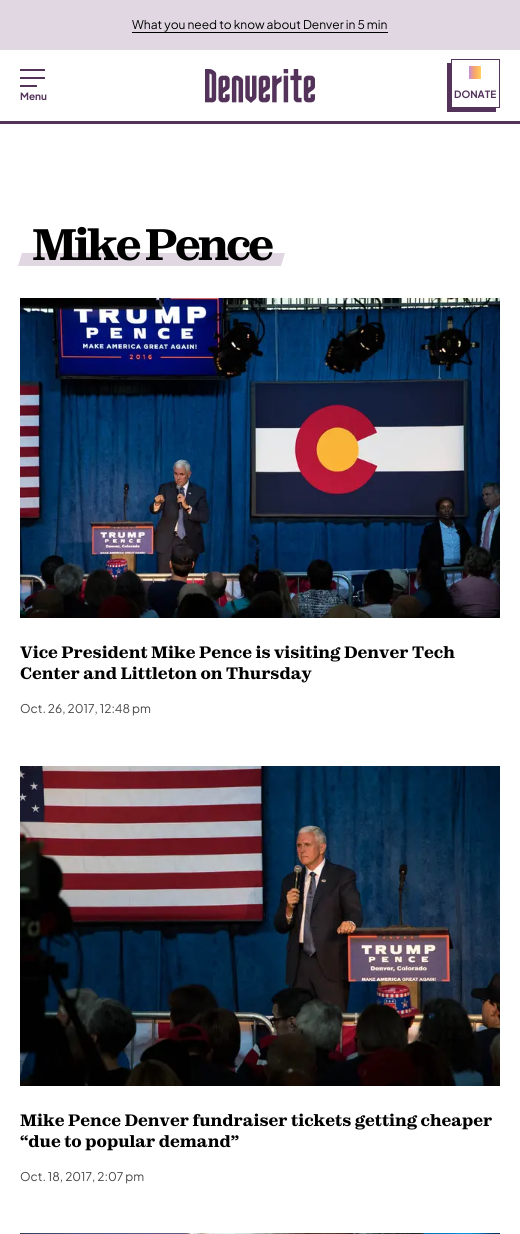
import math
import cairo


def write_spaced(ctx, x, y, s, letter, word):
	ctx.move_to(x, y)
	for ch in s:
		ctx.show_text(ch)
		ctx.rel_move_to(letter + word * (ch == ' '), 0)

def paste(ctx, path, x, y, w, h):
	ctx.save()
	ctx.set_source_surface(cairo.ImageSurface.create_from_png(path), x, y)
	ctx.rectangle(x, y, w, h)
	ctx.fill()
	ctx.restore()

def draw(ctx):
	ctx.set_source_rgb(1, 1, 1)
	ctx.paint()
	ctx.set_source_rgb(0.878, 0.843, 0.886)
	ctx.rectangle(0, 0, 520, 50)
	ctx.fill()
	ctx.select_font_face('Plus Jakarta Sans')
	ctx.set_font_size(12)
	ctx.set_source_rgb(0, 0, 0)
	ctx.move_to(132, 29)
	ctx.show_text('What you need to know about Denver in 5 min')
	ctx.rectangle(132, 32, 256, 1)
	ctx.fill()
	ctx.set_source_rgb(0.329, 0.2, 0.357)
	ctx.rectangle(0, 121, 520, 3)
	ctx.rectangle(20, 69, 25, 2)
	ctx.rectangle(20, 77, 25, 2)
	ctx.rectangle(20, 85, 17, 2)
	ctx.fill()
	ctx.select_font_face('Plus Jakarta Sans', cairo.FONT_SLANT_NORMAL, cairo.FONT_WEIGHT_BOLD)
	ctx.set_font_size(10)
	ctx.move_to(20, 100)
	ctx.show_text('Menu')
	paste(ctx, 'media/1.png', 205, 69, 110, 34)
	ctx.rectangle(447, 63, 49, 49)
	ctx.fill()
	ctx.set_source_rgb(1, 1, 1)
	ctx.rectangle(452, 63, 44, 44)
	ctx.fill()
	ctx.rectangle(451.5, 59.5, 48, 48)
	ctx.set_source_rgb(0.329, 0.2, 0.357)
	ctx.set_line_width(1)
	ctx.stroke()
	gradient = cairo.LinearGradient(469, 73, 481, 73)
	gradient.add_color_stop_rgba(0.02, 0.784, 0.561, 0.831, 1)
	gradient.add_color_stop_rgba(0.43, 0.965, 0.643, 0.435, 1)
	gradient.add_color_stop_rgba(0.71, 0.988, 0.725, 0.384, 1)
	gradient.add_color_stop_rgba(1, 1, 0.824, 0.373, 1)
	ctx.set_source(gradient)
	ctx.rectangle(469, 66, 12, 13)
	ctx.fill()
	ctx.set_source_rgb(0.329, 0.2, 0.357)
	ctx.move_to(454, 98)
	ctx.show_text('DONATE')
	ctx.set_source_rgb(0.878, 0.843, 0.886)
	ctx.new_path()
	ctx.move_to(22, 253)
	ctx.line_to(285, 253)
	ctx.line_to(281, 266)
	ctx.line_to(18, 266)
	ctx.close_path()
	ctx.fill()
	ctx.select_font_face('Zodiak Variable', cairo.FONT_SLANT_NORMAL, cairo.FONT_WEIGHT_BOLD)
	ctx.set_font_size(44)
	ctx.set_source_rgb(0, 0, 0)
	write_spaced(ctx, 32, 260, 'Mike Pence', -3, 0)
	paste(ctx, 'media/2.png', 20, 298, 480, 320)
	ctx.set_font_size(16.5)
	ctx.move_to(20, 658)
	ctx.show_text('Vice President Mike Pence is visiting Denver Tech')
	ctx.move_to(20, 679)
	ctx.show_text('Center and Littleton on Thursday')
	ctx.select_font_face('Plus Jakarta Sans')
	ctx.set_font_size(12)
	ctx.set_source_rgb(0.267, 0.267, 0.267)
	ctx.move_to(20, 713)
	ctx.show_text('Oct. 26, 2017, 12:48 pm')
	paste(ctx, 'media/3.png', 20, 766, 480, 320)
	ctx.select_font_face('Zodiak Variable', cairo.FONT_SLANT_NORMAL, cairo.FONT_WEIGHT_BOLD)
	ctx.set_font_size(16.5)
	ctx.set_source_rgb(0, 0, 0)
	ctx.move_to(20, 1126)
	ctx.show_text('Mike Pence Denver fundraiser tickets getting cheaper')
	ctx.move_to(20, 1147)
	ctx.show_text('“due to popular demand”')
	ctx.select_font_face('Plus Jakarta Sans')
	ctx.set_font_size(12)
	ctx.set_source_rgb(0.267, 0.267, 0.267)
	ctx.move_to(20, 1181)
	ctx.show_text('Oct. 18, 2017, 2:07 pm')
	paste(ctx, 'media/4.png', 20, 1233, 480, 1)


surface = cairo.ImageSurface(cairo.FORMAT_RGB24, 520, 1234)
ctx = cairo.Context(surface)
options = cairo.FontOptions()
options.set_hint_metrics(cairo.HINT_METRICS_OFF)
options.set_hint_style(cairo.HINT_STYLE_NONE)
ctx.set_font_options(options)
ctx.set_miter_limit(4)
draw(ctx)
surface.write_to_png('image.png')
